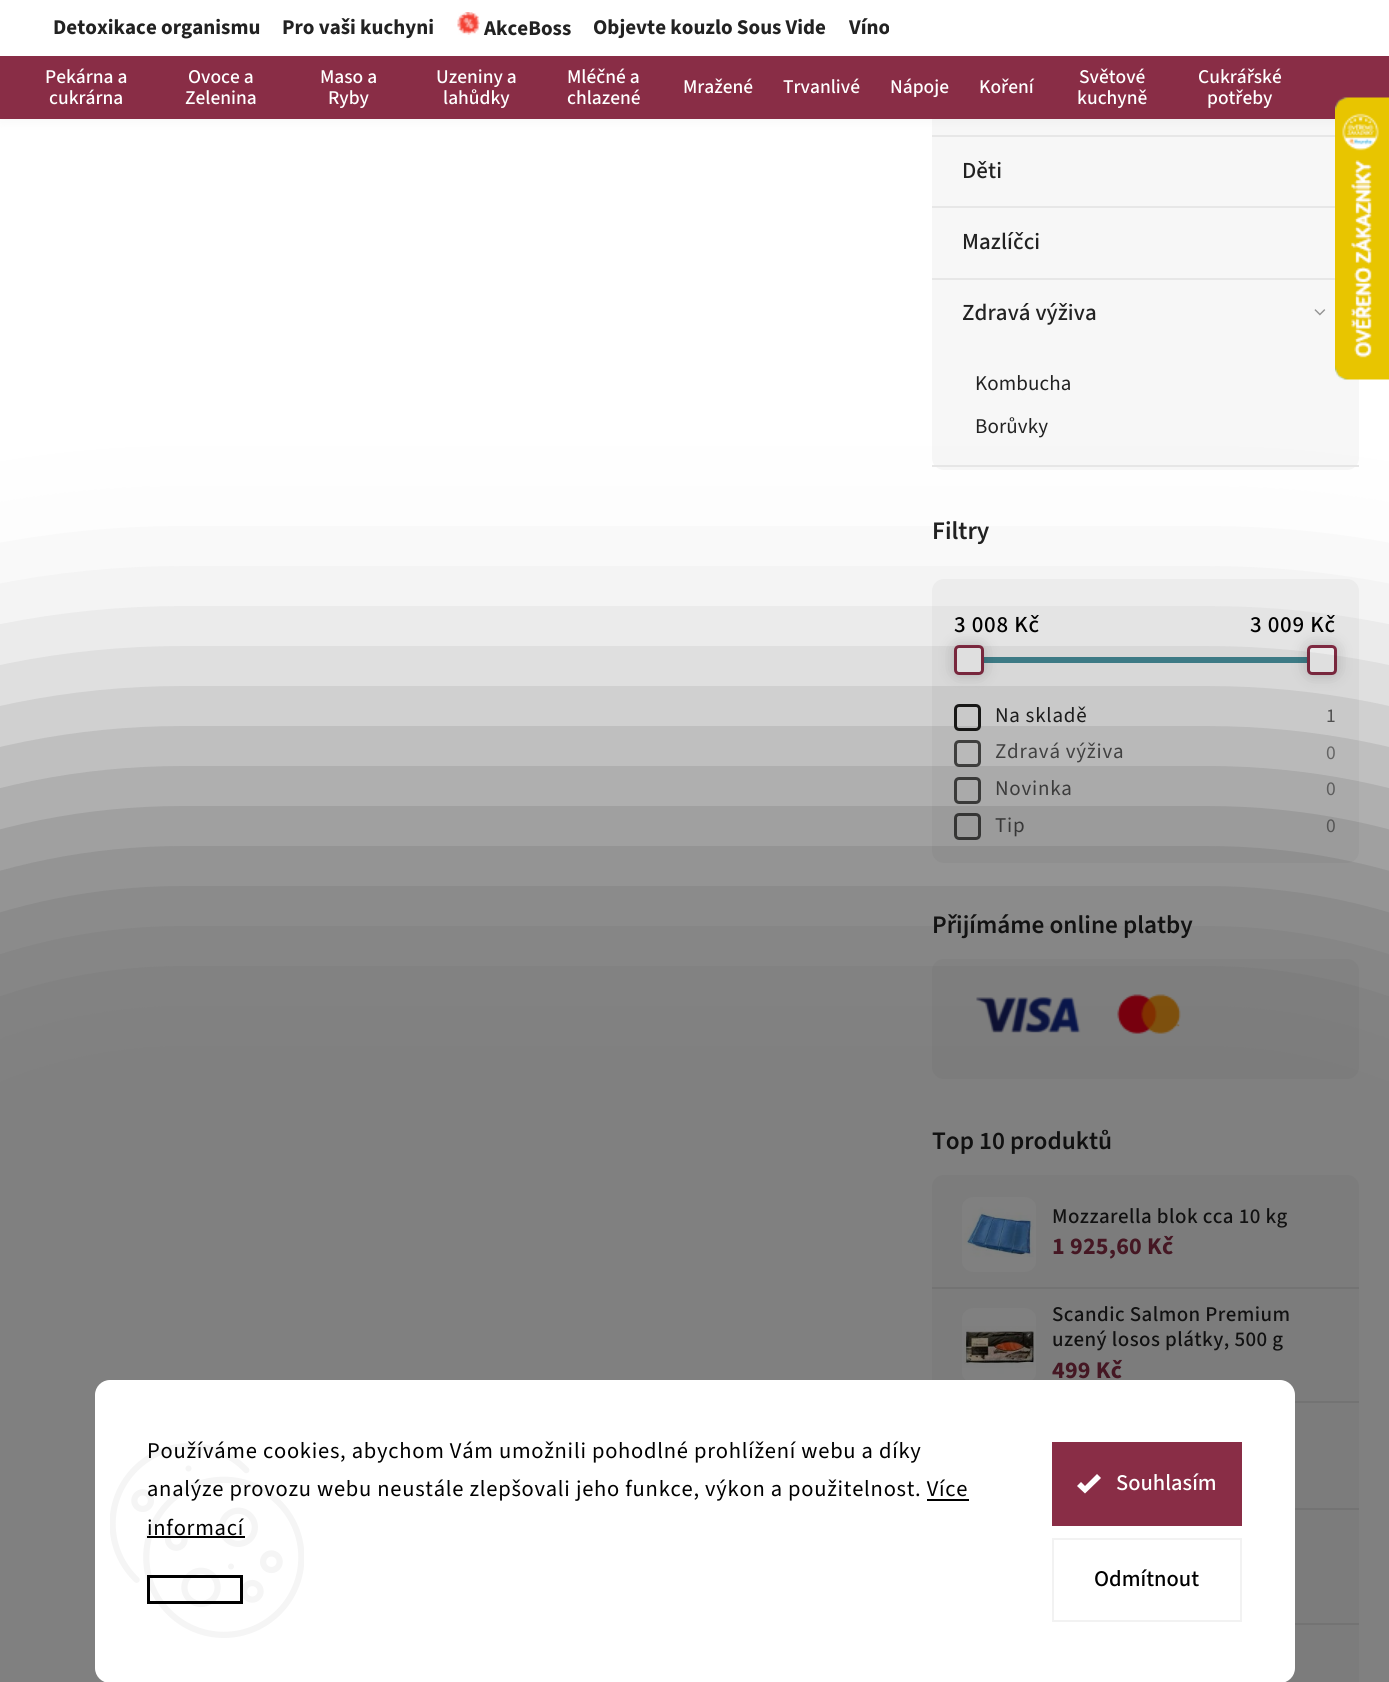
import math
import cairo


def write_spaced(ctx, x, y, s, letter, word):
	ctx.move_to(x, y)
	for ch in s:
		ctx.show_text(ch)
		ctx.rel_move_to(letter + word * (ch == ' '), 0)

def round_path(ctx, x, y, w, h, r):
	ctx.new_sub_path()
	for i, (u, v) in enumerate([(x + w - r, y + h - r), (x + r, y + h - r), (x + r, y + r), (x + w - r, y + r)]):
		ctx.arc(u, v, r, i * math.pi / 2, (i + 1) * math.pi / 2)
	ctx.close_path()

def blur_box(ctx, x, y, w, h, r, blur, alpha):
	ctx.push_group_with_content(cairo.CONTENT_ALPHA)
	ctx.set_operator(cairo.OPERATOR_SOURCE)
	for i in range(15, -16, -2):
		e = blur * i / 6
		if min(w, h) + 2 * e > 0:
			ctx.set_source_rgba(0, 0, 0, alpha * math.erfc((i - 1) / 8.5) / 2)
			round_path(ctx, x - e, y - e, w + 2 * e, h + 2 * e, max(0, min(r + e + blur * .6, min(w, h) / 2 + e)))
			ctx.fill()
	ctx.mask(ctx.pop_group())

def paste(ctx, path, x, y, w, h):
	ctx.save()
	ctx.set_source_surface(cairo.ImageSurface.create_from_png(path), x, y)
	ctx.rectangle(x, y, w, h)
	ctx.fill()
	ctx.restore()

def draw(ctx):
	ctx.set_source_rgb(1, 1, 1)
	ctx.paint()
	ctx.set_source_rgb(0.965, 0.965, 0.965)
	round_path(ctx, 932, -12, 427, 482, 12)
	ctx.fill()
	ctx.set_source_rgb(0.906, 0.906, 0.906)
	ctx.rectangle(932, 135, 403, 2)
	ctx.fill()
	ctx.set_source_rgb(0, 0, 0)
	blur_box(ctx, 0, -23, 1389, 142, 0, 7.5, 0.05)
	ctx.set_source_rgb(1, 1, 1)
	ctx.rectangle(0, 0, 1389, 56)
	ctx.fill()
	ctx.select_font_face('Source Sans 3', cairo.FONT_SLANT_NORMAL, cairo.FONT_WEIGHT_BOLD)
	ctx.set_font_size(21)
	ctx.set_source_rgb(0.133, 0.133, 0.133)
	ctx.move_to(53, 34)
	ctx.show_text('Detoxikace organismu')
	ctx.move_to(282, 34)
	ctx.show_text('Pro vaši kuchyni')
	paste(ctx, 'media/1.png', 457, 12, 23, 23)
	for x, y, s in [
		(484, 35, 'AkceBoss'),
		(593, 34, 'Objevte kouzlo Sous Vide'),
		(849, 34, 'Víno'),
	]:
		ctx.move_to(x, y)
		ctx.show_text(s)
	ctx.set_source_rgb(0.537, 0.176, 0.275)
	ctx.rectangle(0, 56, 1389, 63)
	ctx.fill()
	ctx.select_font_face('Source Sans 3 Medium')
	ctx.set_font_size(19.5)
	ctx.set_source_rgb(1, 1, 1)
	for x, y, s in [
		(45, 83, 'Pekárna a'),
		(49, 104, 'cukrárna'),
		(188, 83, 'Ovoce a'),
		(185, 104, 'Zelenina'),
		(320, 83, 'Maso a'),
		(328, 104, 'Ryby'),
		(436, 83, 'Uzeniny a'),
		(443, 104, 'lahůdky'),
		(567, 83, 'Mléčné a'),
		(567, 104, 'chlazené'),
		(683, 93, 'Mražené'),
		(783, 93, 'Trvanlivé'),
		(890, 93, 'Nápoje'),
		(979, 93, 'Koření'),
		(1079, 83, 'Světové'),
		(1077, 104, 'kuchyně'),
		(1198, 83, 'Cukrářské'),
		(1207, 104, 'potřeby'),
	]:
		ctx.move_to(x, y)
		ctx.show_text(s)
	ctx.set_source_rgb(0.906, 0.906, 0.906)
	ctx.rectangle(932, 206, 403, 2)
	ctx.fill()
	ctx.set_font_size(23)
	ctx.set_source_rgb(0.133, 0.133, 0.133)
	write_spaced(ctx, 962, 178, 'Děti', 0.1, 0)
	ctx.set_source_rgb(0.906, 0.906, 0.906)
	ctx.rectangle(932, 278, 403, 2)
	ctx.fill()
	ctx.set_source_rgb(0.133, 0.133, 0.133)
	write_spaced(ctx, 962, 249, 'Mazlíčci', 0.1, 0)
	write_spaced(ctx, 962, 320, 'Zdravá výživa', 0.1, 0)
	paste(ctx, 'media/2.png', 1314, 309, 12, 7)
	ctx.set_source_rgb(0.906, 0.906, 0.906)
	ctx.rectangle(932, 465, 427, 2)
	ctx.fill()
	ctx.select_font_face('Source Sans 3')
	ctx.set_font_size(21)
	ctx.set_source_rgb(0.133, 0.133, 0.133)
	write_spaced(ctx, 975, 390, 'Kombucha', 0.1, 0)
	write_spaced(ctx, 975, 433, 'Borůvky', 0.1, 0)
	ctx.select_font_face('Source Sans 3 SemiBold')
	ctx.set_font_size(25.25)
	ctx.move_to(932, 539)
	ctx.show_text('Filtry')
	ctx.set_source_rgb(0.965, 0.965, 0.965)
	round_path(ctx, 932, 579, 427, 284, 12)
	ctx.fill()
	ctx.select_font_face('Source Sans 3 Medium')
	ctx.set_font_size(23)
	ctx.set_source_rgb(0, 0, 0)
	write_spaced(ctx, 954, 632, '3 008 Kč', 0.75, 0)
	write_spaced(ctx, 1250, 632, '3 009 Kč', 0.75, 0)
	ctx.set_source_rgb(0.275, 0.549, 0.596)
	ctx.rectangle(984, 657, 323, 6)
	ctx.fill()
	ctx.set_source_rgb(0, 0, 0)
	blur_box(ctx, 954, 645, 30, 30, 5, 7.5, 0.2)
	ctx.set_source_rgb(1, 1, 1)
	round_path(ctx, 955.5, 646.5, 27, 27, 3.5)
	ctx.fill_preserve()
	ctx.set_source_rgb(0.537, 0.176, 0.275)
	ctx.set_line_width(3)
	ctx.stroke()
	ctx.set_source_rgb(0, 0, 0)
	blur_box(ctx, 1307, 645, 30, 30, 5, 7.5, 0.2)
	ctx.set_source_rgb(1, 1, 1)
	round_path(ctx, 1308.5, 646.5, 27, 27, 3.5)
	ctx.fill_preserve()
	ctx.set_source_rgb(0.537, 0.176, 0.275)
	ctx.stroke()
	round_path(ctx, 955.5, 705.5, 24, 24, 3.5)
	ctx.set_source_rgb(0.118, 0.118, 0.11)
	ctx.stroke()
	ctx.select_font_face('Source Sans 3')
	ctx.set_font_size(21)
	ctx.set_source_rgb(0.133, 0.133, 0.133)
	write_spaced(ctx, 995, 722, 'Na skladě', 0.75, 0)
	ctx.set_font_size(19.5)
	ctx.set_source_rgb(0.384, 0.384, 0.384)
	write_spaced(ctx, 1326, 722, '1', 0.75, 0)
	round_path(ctx, 955.5, 741.5, 24, 24, 3.5)
	ctx.set_source_rgb(0.329, 0.329, 0.325)
	ctx.stroke()
	ctx.set_font_size(21)
	ctx.set_source_rgb(0.341, 0.341, 0.341)
	write_spaced(ctx, 995, 758, 'Zdravá výživa', 0.75, 0)
	ctx.set_font_size(19.5)
	ctx.set_source_rgb(0.529, 0.529, 0.529)
	write_spaced(ctx, 1326, 759, '0', 0.75, 0)
	round_path(ctx, 955.5, 778.5, 24, 24, 3.5)
	ctx.set_source_rgb(0.329, 0.329, 0.325)
	ctx.stroke()
	ctx.set_font_size(21)
	ctx.set_source_rgb(0.341, 0.341, 0.341)
	write_spaced(ctx, 995, 795, 'Novinka', 0.75, 0)
	ctx.set_font_size(19.5)
	ctx.set_source_rgb(0.529, 0.529, 0.529)
	write_spaced(ctx, 1326, 795, '0', 0.75, 0)
	round_path(ctx, 955.5, 814.5, 24, 24, 3.5)
	ctx.set_source_rgb(0.329, 0.329, 0.325)
	ctx.stroke()
	ctx.set_font_size(21)
	ctx.set_source_rgb(0.341, 0.341, 0.341)
	write_spaced(ctx, 995, 832, 'Tip', 0.75, 0)
	ctx.set_font_size(19.5)
	ctx.set_source_rgb(0.529, 0.529, 0.529)
	write_spaced(ctx, 1326, 832, '0', 0.75, 0)
	ctx.select_font_face('Source Sans 3 SemiBold')
	ctx.set_font_size(25.25)
	ctx.set_source_rgb(0.133, 0.133, 0.133)
	ctx.move_to(932, 933)
	ctx.show_text('Přijímáme online platby')
	ctx.set_source_rgb(0.965, 0.965, 0.965)
	round_path(ctx, 932, 959, 427, 120, 12)
	ctx.fill()
	paste(ctx, 'media/3.png', 976, 994, 205, 40)
	ctx.set_source_rgb(0.133, 0.133, 0.133)
	ctx.move_to(932, 1149)
	ctx.show_text('Top 10 produktů')
	ctx.set_source_rgb(0.965, 0.965, 0.965)
	round_path(ctx, 932, 1175, 427, 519, 12)
	ctx.fill()
	ctx.set_source_rgb(0.902, 0.898, 0.898)
	ctx.rectangle(932, 1287, 427, 2)
	ctx.fill()
	paste(ctx, 'media/4.png', 962, 1197, 74, 75)
	ctx.select_font_face('Source Sans 3 Medium')
	ctx.set_font_size(21)
	ctx.set_source_rgb(0.133, 0.133, 0.133)
	write_spaced(ctx, 1052, 1223, 'Mozzarella blok cca 10 kg', 0.45, 0)
	ctx.select_font_face('Source Sans 3', cairo.FONT_SLANT_NORMAL, cairo.FONT_WEIGHT_BOLD)
	ctx.set_font_size(24)
	ctx.set_source_rgb(0.537, 0.176, 0.275)
	write_spaced(ctx, 1052, 1254, '1 925,60 Kč', 0.25, 0)
	ctx.set_source_rgb(0.902, 0.898, 0.898)
	ctx.rectangle(1295, 1401, 64, 2)
	ctx.fill()
	paste(ctx, 'media/5.png', 962, 1308, 74, 72)
	ctx.select_font_face('Source Sans 3 Medium')
	ctx.set_font_size(21)
	ctx.set_source_rgb(0.133, 0.133, 0.133)
	write_spaced(ctx, 1052, 1321, 'Scandic Salmon Premium', 0.45, 0)
	write_spaced(ctx, 1052, 1346, 'uzený losos plátky, 500 g', 0.45, 0)
	ctx.select_font_face('Source Sans 3', cairo.FONT_SLANT_NORMAL, cairo.FONT_WEIGHT_BOLD)
	ctx.set_font_size(24)
	ctx.set_source_rgb(0.537, 0.176, 0.275)
	write_spaced(ctx, 1052, 1378, '499 Kč', 0.25, 0)
	ctx.set_source_rgb(0.902, 0.898, 0.898)
	ctx.rectangle(1295, 1508, 64, 2)
	ctx.fill()
	ctx.rectangle(1295, 1623, 64, 2)
	ctx.fill()
	paste(ctx, 'media/6.png', 1335, 97, 54, 283)
	ctx.set_source_rgb(0, 0, 0)
	blur_box(ctx, -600, 746, 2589, 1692, 710, 120, 0.5)
	ctx.set_source_rgb(1, 1, 1)
	round_path(ctx, 95, 1380, 1200, 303, 15)
	ctx.fill()
	paste(ctx, 'media/7.png', 110, 1443, 194, 195)
	ctx.select_font_face('Source Sans 3')
	ctx.set_font_size(22.5)
	ctx.set_source_rgb(0, 0, 0)
	for x, y, s in [
		(147, 1458, 'Používáme cookies, abychom Vám umožnili pohodlné prohlížení webu a díky'),
		(147, 1496, 'analýze provozu webu neustále zlepšovali jeho funkce, výkon a použitelnost. Více'),
		(147, 1535, 'informací'),
	]:
		write_spaced(ctx, x, y, s, 0.75, 0)
	ctx.rectangle(927, 1499, 42, 2)
	ctx.fill()
	ctx.rectangle(147, 1536, 98, 2)
	ctx.fill()
	ctx.rectangle(148.5, 1576.5, 93, 26)
	ctx.stroke()
	ctx.set_source_rgb(0.537, 0.176, 0.275)
	ctx.rectangle(1052, 1442, 190, 84)
	ctx.fill()
	ctx.set_source_rgb(1, 1, 1)
	ctx.new_path()
	ctx.move_to(1097, 1474)
	ctx.line_to(1085, 1486)
	ctx.line_to(1081, 1482)
	ctx.line_to(1077, 1486)
	ctx.line_to(1085, 1493.5)
	ctx.line_to(1101, 1478)
	ctx.close_path()
	ctx.fill()
	ctx.select_font_face('Source Sans 3 Medium')
	ctx.move_to(1116, 1490)
	ctx.show_text('Souhlasím')
	ctx.rectangle(1053, 1539, 188, 82)
	ctx.set_source_rgb(0.949, 0.949, 0.949)
	ctx.set_line_width(2)
	ctx.stroke()
	ctx.set_source_rgb(0, 0, 0)
	ctx.move_to(1094, 1586)
	ctx.show_text('Odmítnout')


surface = cairo.ImageSurface(cairo.FORMAT_RGB24, 1389, 1682)
ctx = cairo.Context(surface)
options = cairo.FontOptions()
options.set_hint_metrics(cairo.HINT_METRICS_OFF)
options.set_hint_style(cairo.HINT_STYLE_NONE)
ctx.set_font_options(options)
ctx.set_miter_limit(4)
draw(ctx)
surface.write_to_png('image.png')
